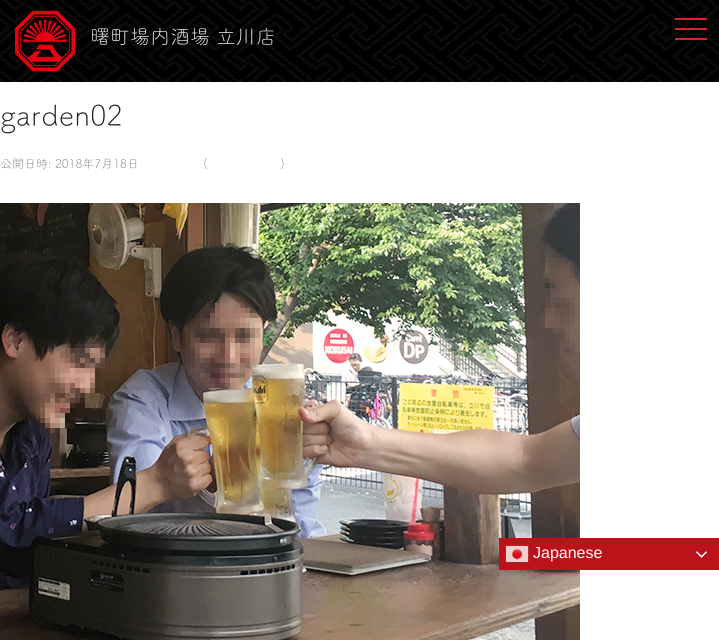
import math
import cairo


def paste(ctx, path, x, y, w, h):
	ctx.save()
	ctx.set_source_surface(cairo.ImageSurface.create_from_png(path), x, y)
	ctx.rectangle(x, y, w, h)
	ctx.fill()
	ctx.restore()

def draw(ctx):
	ctx.set_source_rgb(1, 1, 1)
	ctx.paint()
	paste(ctx, 'media/1.png', 0, 0, 719, 82)
	paste(ctx, 'media/2.png', 15, 10, 60, 62)
	ctx.select_font_face('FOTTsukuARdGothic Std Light')
	ctx.set_font_size(20)
	ctx.set_source_rgb(1, 1, 1)
	ctx.move_to(90, 44)
	ctx.show_text('曙町場内酒場 立川店')
	ctx.set_source_rgb(0.867, 0.122, 0.188)
	ctx.rectangle(675, 28, 32, 2)
	ctx.rectangle(675, 18, 32, 2)
	ctx.rectangle(675, 38, 32, 2)
	ctx.fill()
	ctx.set_font_size(29)
	ctx.set_source_rgb(0.129, 0.122, 0.114)
	ctx.move_to(0, 126)
	ctx.show_text('garden02')
	ctx.set_font_size(12)
	ctx.set_source_rgb(0.459, 0.459, 0.459)
	for x, y, s in [
		(0, 168, '公開日時: 2018年7月18日'),
		(203, 168, '('),
		(280, 168, ')'),
	]:
		ctx.move_to(x, y)
		ctx.show_text(s)
	paste(ctx, 'media/3.png', 0, 203, 580, 437)
	ctx.set_source_rgb(0.737, 0.071, 0.102)
	ctx.rectangle(499, 538, 220, 32)
	ctx.fill()
	paste(ctx, 'media/4.png', 505, 545, 24, 19)
	ctx.select_font_face('Liberation Sans')
	ctx.set_font_size(16)
	ctx.set_source_rgb(1, 1, 1)
	ctx.move_to(533, 558)
	ctx.show_text('Japanese')
	paste(ctx, 'media/5.png', 696, 551, 11, 7)


surface = cairo.ImageSurface(cairo.FORMAT_RGB24, 719, 640)
ctx = cairo.Context(surface)
options = cairo.FontOptions()
options.set_hint_metrics(cairo.HINT_METRICS_OFF)
options.set_hint_style(cairo.HINT_STYLE_NONE)
ctx.set_font_options(options)
ctx.set_miter_limit(4)
draw(ctx)
surface.write_to_png('image.png')
